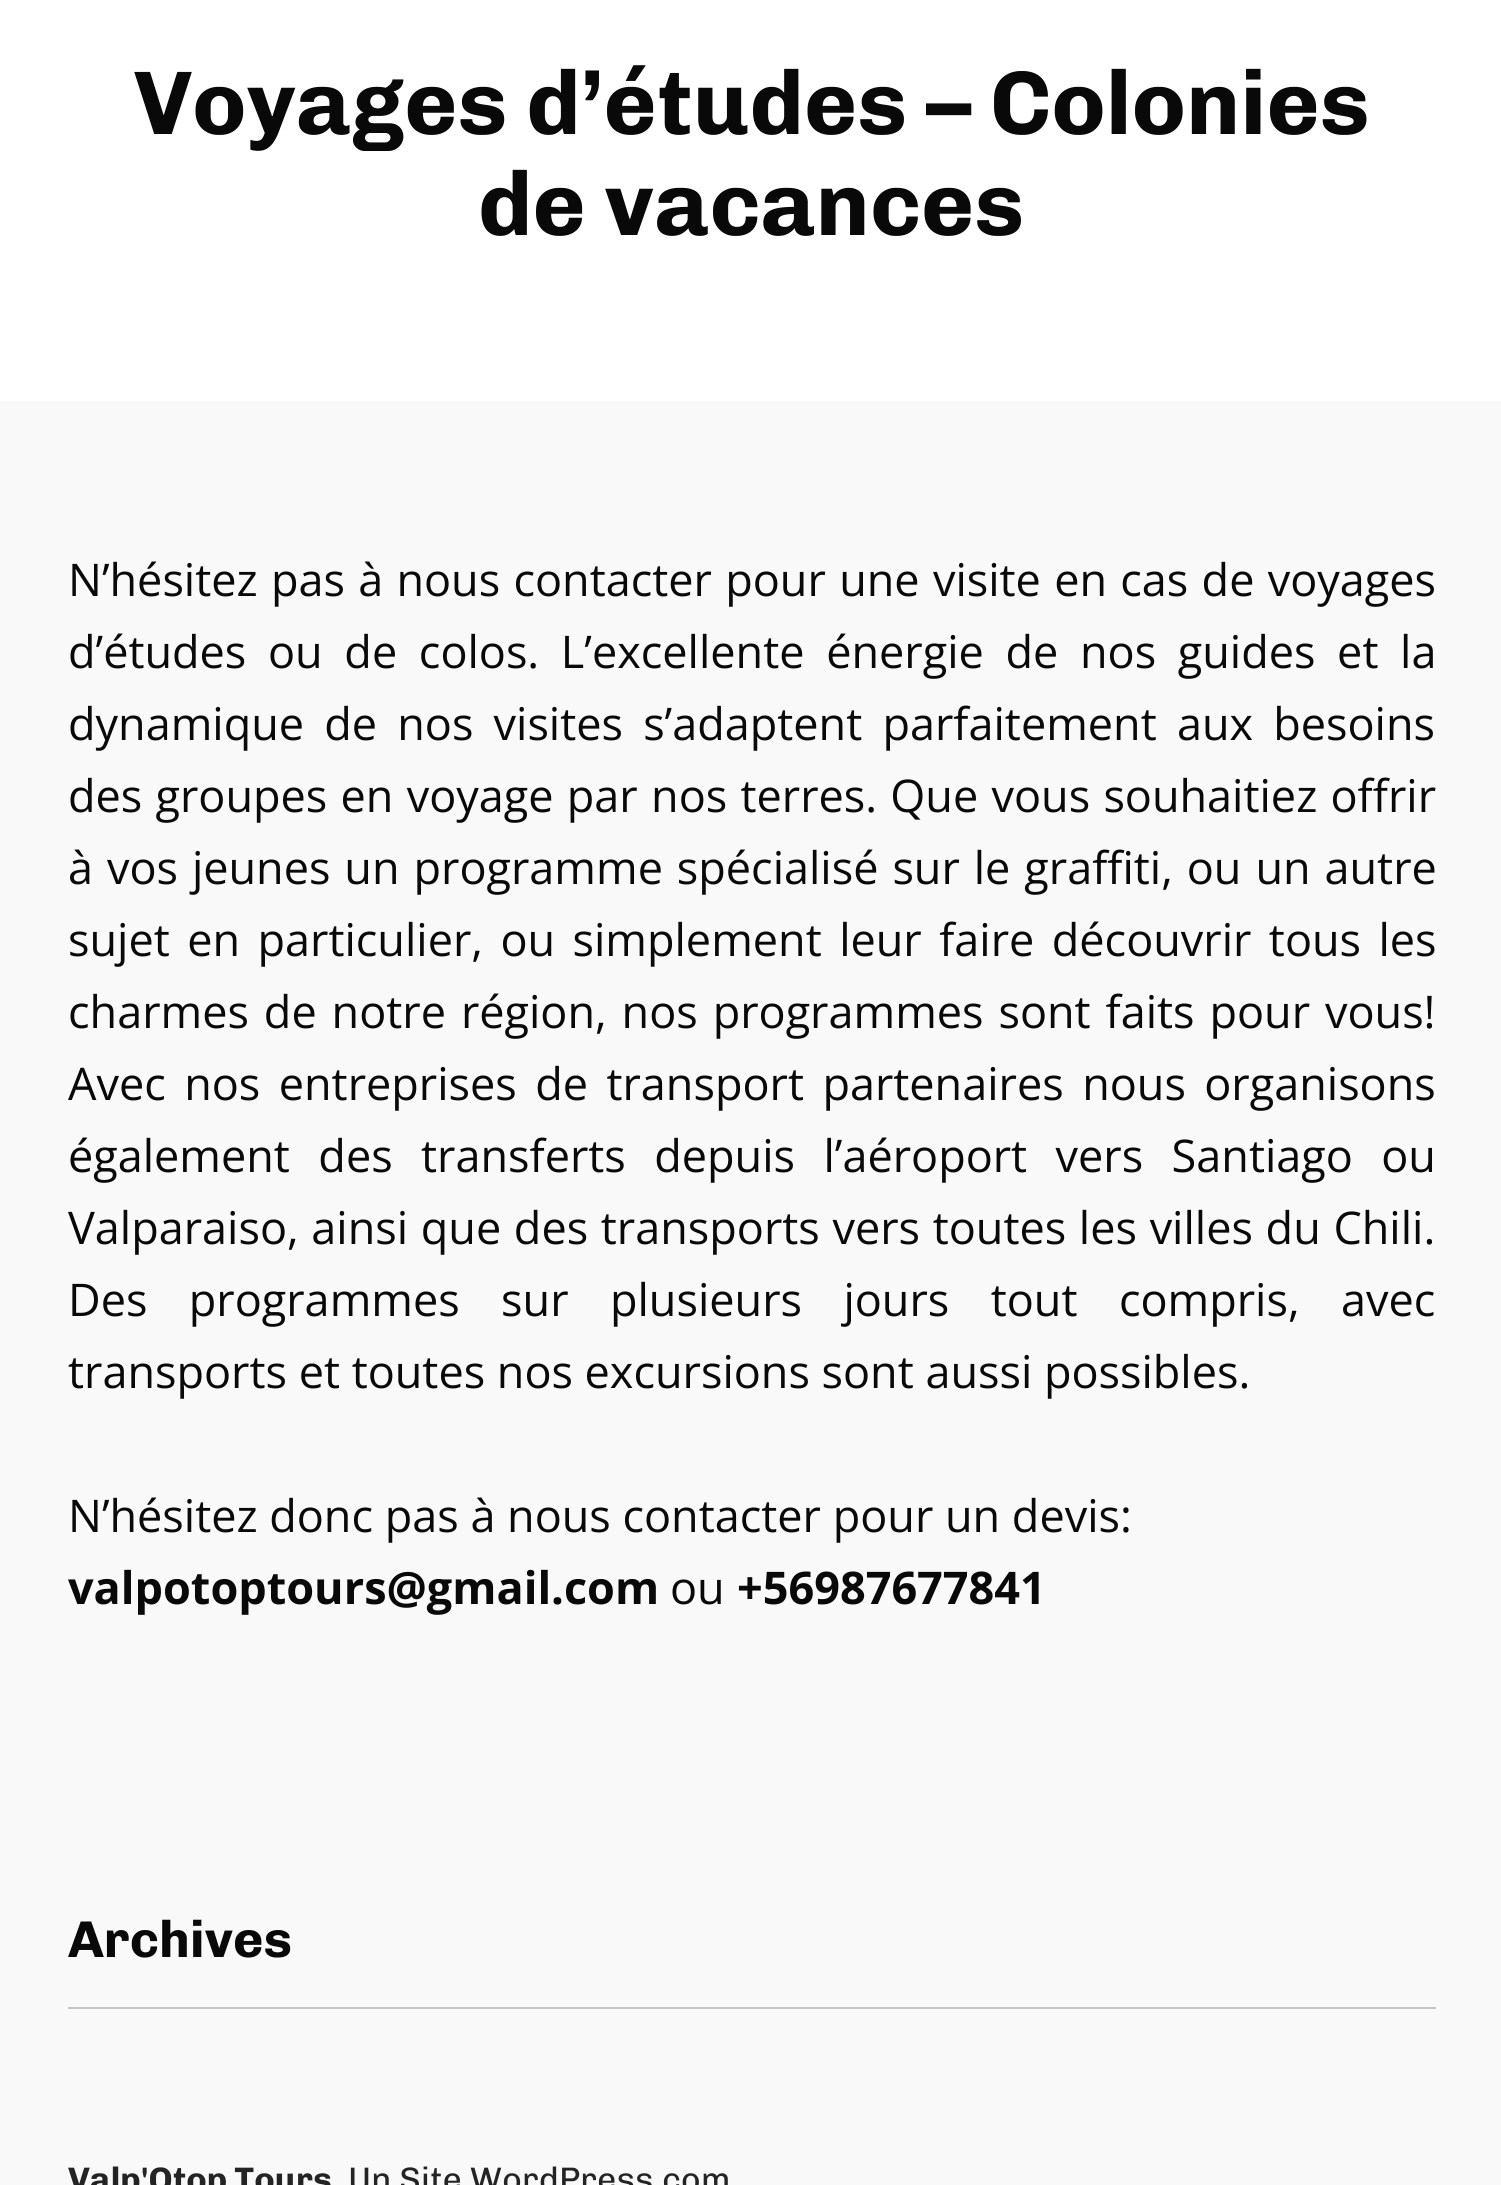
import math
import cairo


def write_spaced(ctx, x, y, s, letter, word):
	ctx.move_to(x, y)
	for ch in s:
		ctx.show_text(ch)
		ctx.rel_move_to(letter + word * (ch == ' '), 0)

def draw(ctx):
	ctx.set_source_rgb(0.976, 0.976, 0.98)
	ctx.paint()
	ctx.set_source_rgb(1, 1, 1)
	ctx.rectangle(0, 0, 1501, 401)
	ctx.fill()
	ctx.select_font_face('Chivo', cairo.FONT_SLANT_NORMAL, cairo.FONT_WEIGHT_BOLD)
	ctx.set_font_size(90.5)
	ctx.set_source_rgb(0.039, 0.039, 0.039)
	ctx.move_to(134, 134)
	ctx.show_text('Voyages d’études – Colonies')
	ctx.move_to(478, 235)
	ctx.show_text('de vacances')
	ctx.select_font_face('Open Sans')
	ctx.set_font_size(45)
	write_spaced(ctx, 68, 596, 'N’hésitez pas à nous contacter pour une visite en cas de voyages', 0, 1.6)
	write_spaced(ctx, 68, 668, 'd’études ou de colos. L’excellente énergie de nos guides et la', 0, 10)
	write_spaced(ctx, 68, 740, 'dynamique de nos visites s’adaptent parfaitement aux besoins', 0, 8.5)
	write_spaced(ctx, 68, 812, 'des groupes en voyage par nos terres. Que vous souhaitiez offrir', 0, 1.6)
	write_spaced(ctx, 68, 884, 'à vos jeunes un programme spécialisé sur le graffiti, ou un autre', 0, 2.25)
	write_spaced(ctx, 68, 956, 'sujet en particulier, ou simplement leur faire découvrir tous les', 0, 5.75)
	write_spaced(ctx, 68, 1028, 'charmes de notre région, nos programmes sont faits pour vous!', 0, 3.25)
	write_spaced(ctx, 68, 1100, 'Avec nos entreprises de transport partenaires nous organisons', 0, 6.75)
	write_spaced(ctx, 68, 1172, 'également des transferts depuis l’aéroport vers Santiago ou', 0, 16.75)
	write_spaced(ctx, 68, 1244, 'Valparaiso, ainsi que des transports vers toutes les villes du Chili.', 0, 1)
	write_spaced(ctx, 68, 1316, 'Des programmes sur plusieurs jours tout compris, avec', 0, 29.75)
	ctx.move_to(68, 1388)
	ctx.show_text('transports et toutes nos excursions sont aussi possibles.')
	ctx.move_to(68, 1532)
	ctx.show_text('N’hésitez donc pas à nous contacter pour un devis:')
	ctx.select_font_face('Open Sans', cairo.FONT_SLANT_NORMAL, cairo.FONT_WEIGHT_BOLD)
	ctx.move_to(68, 1604)
	ctx.show_text('valpotoptours@gmail.com')
	ctx.select_font_face('Open Sans')
	ctx.move_to(670, 1604)
	ctx.show_text('ou')
	ctx.select_font_face('Open Sans', cairo.FONT_SLANT_NORMAL, cairo.FONT_WEIGHT_BOLD)
	ctx.move_to(737, 1604)
	ctx.show_text('+56987677841')
	ctx.select_font_face('Chivo', cairo.FONT_SLANT_NORMAL, cairo.FONT_WEIGHT_BOLD)
	ctx.set_font_size(51.75)
	ctx.move_to(68, 1957)
	ctx.show_text('Archives')
	ctx.set_source_rgb(0.773, 0.773, 0.773)
	ctx.rectangle(68, 2007, 1368, 2)
	ctx.fill()
	ctx.set_font_size(34)
	ctx.set_source_rgb(0.141, 0.141, 0.141)
	ctx.move_to(68, 2191)
	ctx.show_text('Valp\'Otop Tours')
	ctx.select_font_face('Chivo')
	ctx.move_to(348, 2191)
	ctx.show_text('Un Site WordPress.com')


surface = cairo.ImageSurface(cairo.FORMAT_RGB24, 1501, 2185)
ctx = cairo.Context(surface)
options = cairo.FontOptions()
options.set_hint_metrics(cairo.HINT_METRICS_OFF)
options.set_hint_style(cairo.HINT_STYLE_NONE)
ctx.set_font_options(options)
ctx.set_miter_limit(4)
draw(ctx)
surface.write_to_png('image.png')
